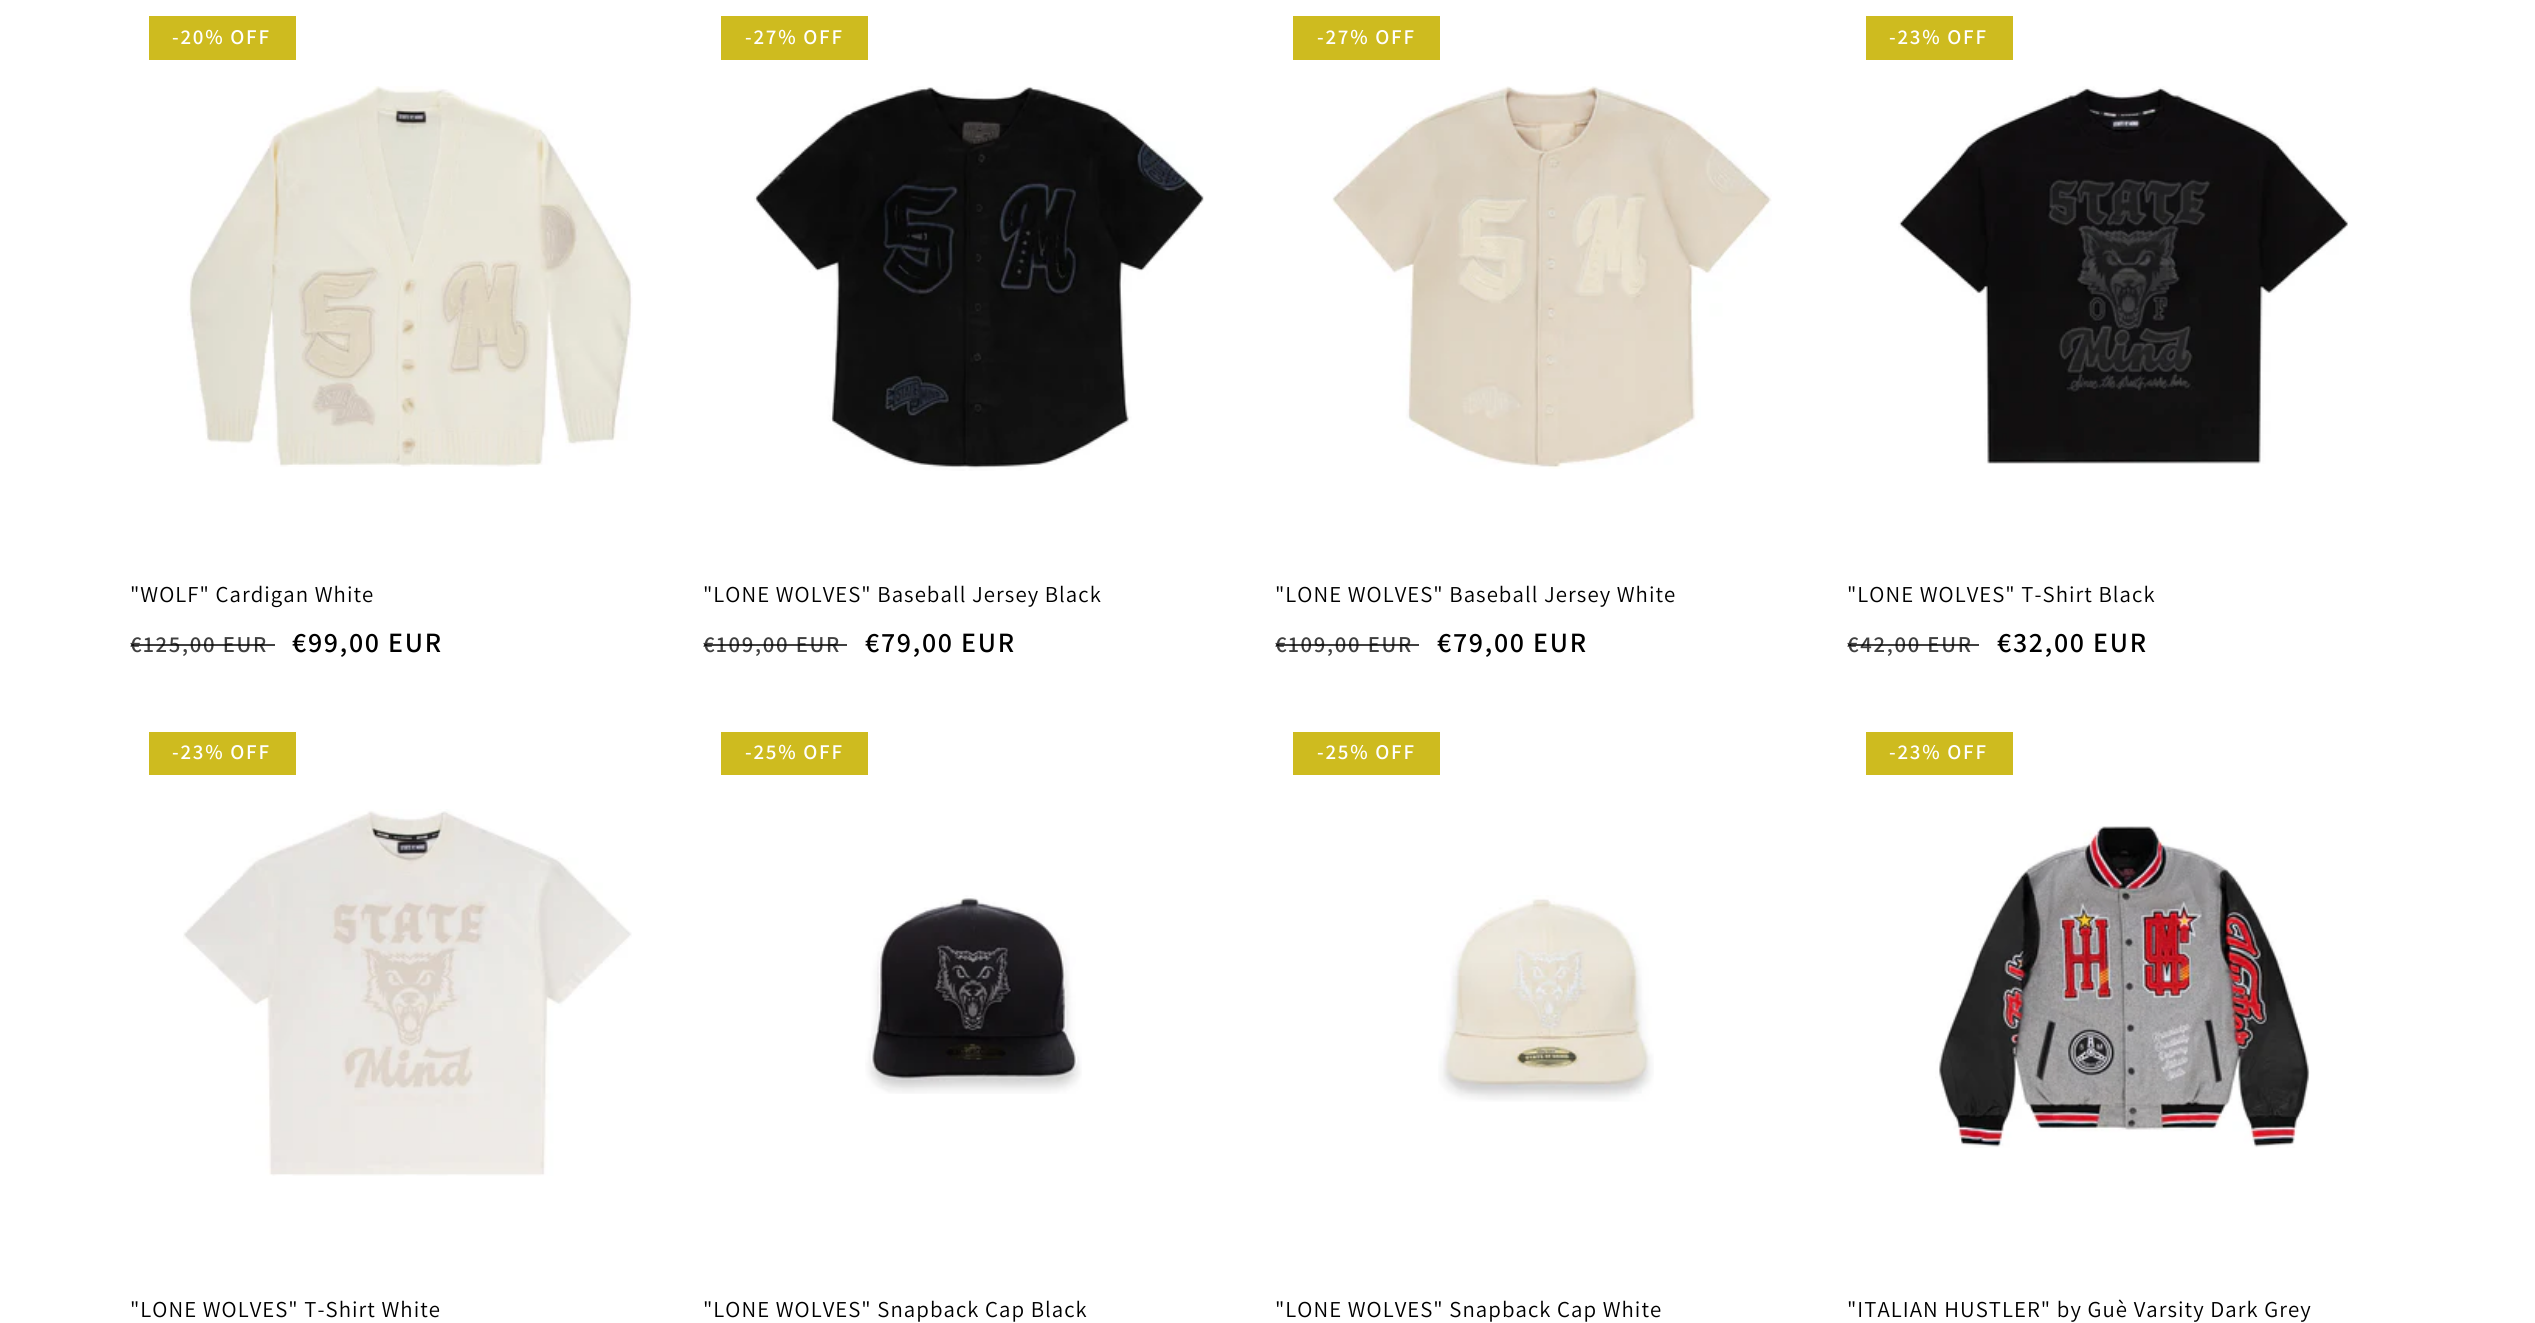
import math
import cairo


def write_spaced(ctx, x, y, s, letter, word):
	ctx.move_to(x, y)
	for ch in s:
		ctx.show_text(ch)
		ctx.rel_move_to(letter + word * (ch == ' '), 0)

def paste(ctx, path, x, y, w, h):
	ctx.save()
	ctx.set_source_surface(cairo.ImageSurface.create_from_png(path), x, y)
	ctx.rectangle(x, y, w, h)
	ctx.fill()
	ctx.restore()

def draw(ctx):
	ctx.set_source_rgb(1, 1, 1)
	ctx.paint()
	ctx.set_source_rgb(0.808, 0.733, 0.122)
	ctx.rectangle(149, 16, 147, 44)
	ctx.fill()
	ctx.select_font_face('Assistant SemiBold')
	ctx.set_font_size(21)
	ctx.set_source_rgb(1, 1, 1)
	write_spaced(ctx, 172, 44, '-20% OFF', 1.75, 0)
	paste(ctx, 'media/1.png', 187, 86, 446, 381)
	ctx.select_font_face('Assistant')
	ctx.set_font_size(22.75)
	ctx.set_source_rgb(0, 0, 0)
	write_spaced(ctx, 130, 602, '"WOLF" Cardigan White', 1.05, 0)
	ctx.select_font_face('Assistant SemiBold')
	ctx.set_source_rgb(0.251, 0.251, 0.251)
	write_spaced(ctx, 130, 652, '€125,00 EUR', 1.75, 0)
	ctx.set_source_rgba(0, 0, 0, 0.75)
	ctx.rectangle(131, 644, 144, 2)
	ctx.fill()
	ctx.set_font_size(28)
	ctx.set_source_rgb(0, 0, 0)
	write_spaced(ctx, 292, 652, '€99,00 EUR', 1.75, 0)
	ctx.set_source_rgb(0.808, 0.733, 0.122)
	ctx.rectangle(721, 16, 147, 44)
	ctx.fill()
	ctx.set_font_size(21)
	ctx.set_source_rgb(1, 1, 1)
	write_spaced(ctx, 745, 44, '-27% OFF', 1.75, 0)
	paste(ctx, 'media/2.png', 754, 86, 450, 385)
	ctx.select_font_face('Assistant')
	ctx.set_font_size(22.75)
	ctx.set_source_rgb(0, 0, 0)
	write_spaced(ctx, 703, 602, '"LONE WOLVES" Baseball Jersey Black', 1.05, 0)
	ctx.select_font_face('Assistant SemiBold')
	ctx.set_source_rgb(0.251, 0.251, 0.251)
	write_spaced(ctx, 703, 652, '€109,00 EUR', 1.75, 0)
	ctx.set_source_rgba(0, 0, 0, 0.75)
	ctx.rectangle(704, 644, 143, 2)
	ctx.fill()
	ctx.set_font_size(28)
	ctx.set_source_rgb(0, 0, 0)
	write_spaced(ctx, 865, 652, '€79,00 EUR', 1.75, 0)
	ctx.set_source_rgb(0.808, 0.733, 0.122)
	ctx.rectangle(1293, 16, 147, 44)
	ctx.fill()
	ctx.set_font_size(21)
	ctx.set_source_rgb(1, 1, 1)
	write_spaced(ctx, 1317, 44, '-27% OFF', 1.75, 0)
	paste(ctx, 'media/3.png', 1332, 86, 440, 383)
	ctx.select_font_face('Assistant')
	ctx.set_font_size(22.75)
	ctx.set_source_rgb(0, 0, 0)
	write_spaced(ctx, 1275, 602, '"LONE WOLVES" Baseball Jersey White', 1.05, 0)
	ctx.select_font_face('Assistant SemiBold')
	ctx.set_source_rgb(0.251, 0.251, 0.251)
	write_spaced(ctx, 1275, 652, '€109,00 EUR', 1.75, 0)
	ctx.set_source_rgba(0, 0, 0, 0.75)
	ctx.rectangle(1276, 644, 143, 2)
	ctx.fill()
	ctx.set_font_size(28)
	ctx.set_source_rgb(0, 0, 0)
	write_spaced(ctx, 1437, 652, '€79,00 EUR', 1.75, 0)
	ctx.set_source_rgb(0.808, 0.733, 0.122)
	ctx.rectangle(1866, 16, 147, 44)
	ctx.fill()
	ctx.set_font_size(21)
	ctx.set_source_rgb(1, 1, 1)
	write_spaced(ctx, 1889, 44, '-23% OFF', 1.75, 0)
	paste(ctx, 'media/4.png', 1898, 86, 450, 378)
	ctx.select_font_face('Assistant')
	ctx.set_font_size(22.75)
	ctx.set_source_rgb(0, 0, 0)
	write_spaced(ctx, 1847, 602, '"LONE WOLVES" T-Shirt Black', 1.05, 0)
	ctx.select_font_face('Assistant SemiBold')
	ctx.set_source_rgb(0.251, 0.251, 0.251)
	write_spaced(ctx, 1847, 652, '€42,00 EUR', 1.75, 0)
	ctx.set_source_rgba(0, 0, 0, 0.75)
	ctx.rectangle(1848, 644, 131, 2)
	ctx.fill()
	ctx.set_font_size(28)
	ctx.set_source_rgb(0, 0, 0)
	write_spaced(ctx, 1997, 652, '€32,00 EUR', 1.75, 0)
	ctx.set_source_rgb(0.808, 0.733, 0.122)
	ctx.rectangle(149, 732, 147, 43)
	ctx.fill()
	ctx.set_font_size(21)
	ctx.set_source_rgb(1, 1, 1)
	write_spaced(ctx, 172, 759, '-23% OFF', 1.75, 0)
	paste(ctx, 'media/5.png', 183, 809, 449, 367)
	ctx.select_font_face('Assistant')
	ctx.set_font_size(22.75)
	ctx.set_source_rgb(0, 0, 0)
	write_spaced(ctx, 130, 1317, '"LONE WOLVES" T-Shirt White', 1.05, 0)
	ctx.set_source_rgb(0.808, 0.733, 0.122)
	ctx.rectangle(721, 732, 147, 43)
	ctx.fill()
	ctx.select_font_face('Assistant SemiBold')
	ctx.set_font_size(21)
	ctx.set_source_rgb(1, 1, 1)
	write_spaced(ctx, 745, 759, '-25% OFF', 1.75, 0)
	paste(ctx, 'media/6.png', 865, 895, 217, 199)
	ctx.select_font_face('Assistant')
	ctx.set_font_size(22.75)
	ctx.set_source_rgb(0, 0, 0)
	write_spaced(ctx, 703, 1317, '"LONE WOLVES" Snapback Cap Black', 1.05, 0)
	ctx.set_source_rgb(0.808, 0.733, 0.122)
	ctx.rectangle(1293, 732, 147, 43)
	ctx.fill()
	ctx.select_font_face('Assistant SemiBold')
	ctx.set_font_size(21)
	ctx.set_source_rgb(1, 1, 1)
	write_spaced(ctx, 1317, 759, '-25% OFF', 1.75, 0)
	paste(ctx, 'media/7.png', 1438, 895, 216, 207)
	ctx.select_font_face('Assistant')
	ctx.set_font_size(22.75)
	ctx.set_source_rgb(0, 0, 0)
	write_spaced(ctx, 1275, 1317, '"LONE WOLVES" Snapback Cap White', 1.05, 0)
	ctx.set_source_rgb(0.808, 0.733, 0.122)
	ctx.rectangle(1866, 732, 147, 43)
	ctx.fill()
	ctx.select_font_face('Assistant SemiBold')
	ctx.set_font_size(21)
	ctx.set_source_rgb(1, 1, 1)
	write_spaced(ctx, 1889, 759, '-23% OFF', 1.75, 0)
	paste(ctx, 'media/8.png', 1935, 826, 375, 322)
	ctx.select_font_face('Assistant')
	ctx.set_font_size(22.75)
	ctx.set_source_rgb(0, 0, 0)
	write_spaced(ctx, 1847, 1317, '"ITALIAN HUSTLER" by Guè Varsity Dark Grey', 1.05, 0)


surface = cairo.ImageSurface(cairo.FORMAT_RGB24, 2535, 1323)
ctx = cairo.Context(surface)
options = cairo.FontOptions()
options.set_hint_metrics(cairo.HINT_METRICS_OFF)
options.set_hint_style(cairo.HINT_STYLE_NONE)
ctx.set_font_options(options)
ctx.set_miter_limit(4)
draw(ctx)
surface.write_to_png('image.png')
